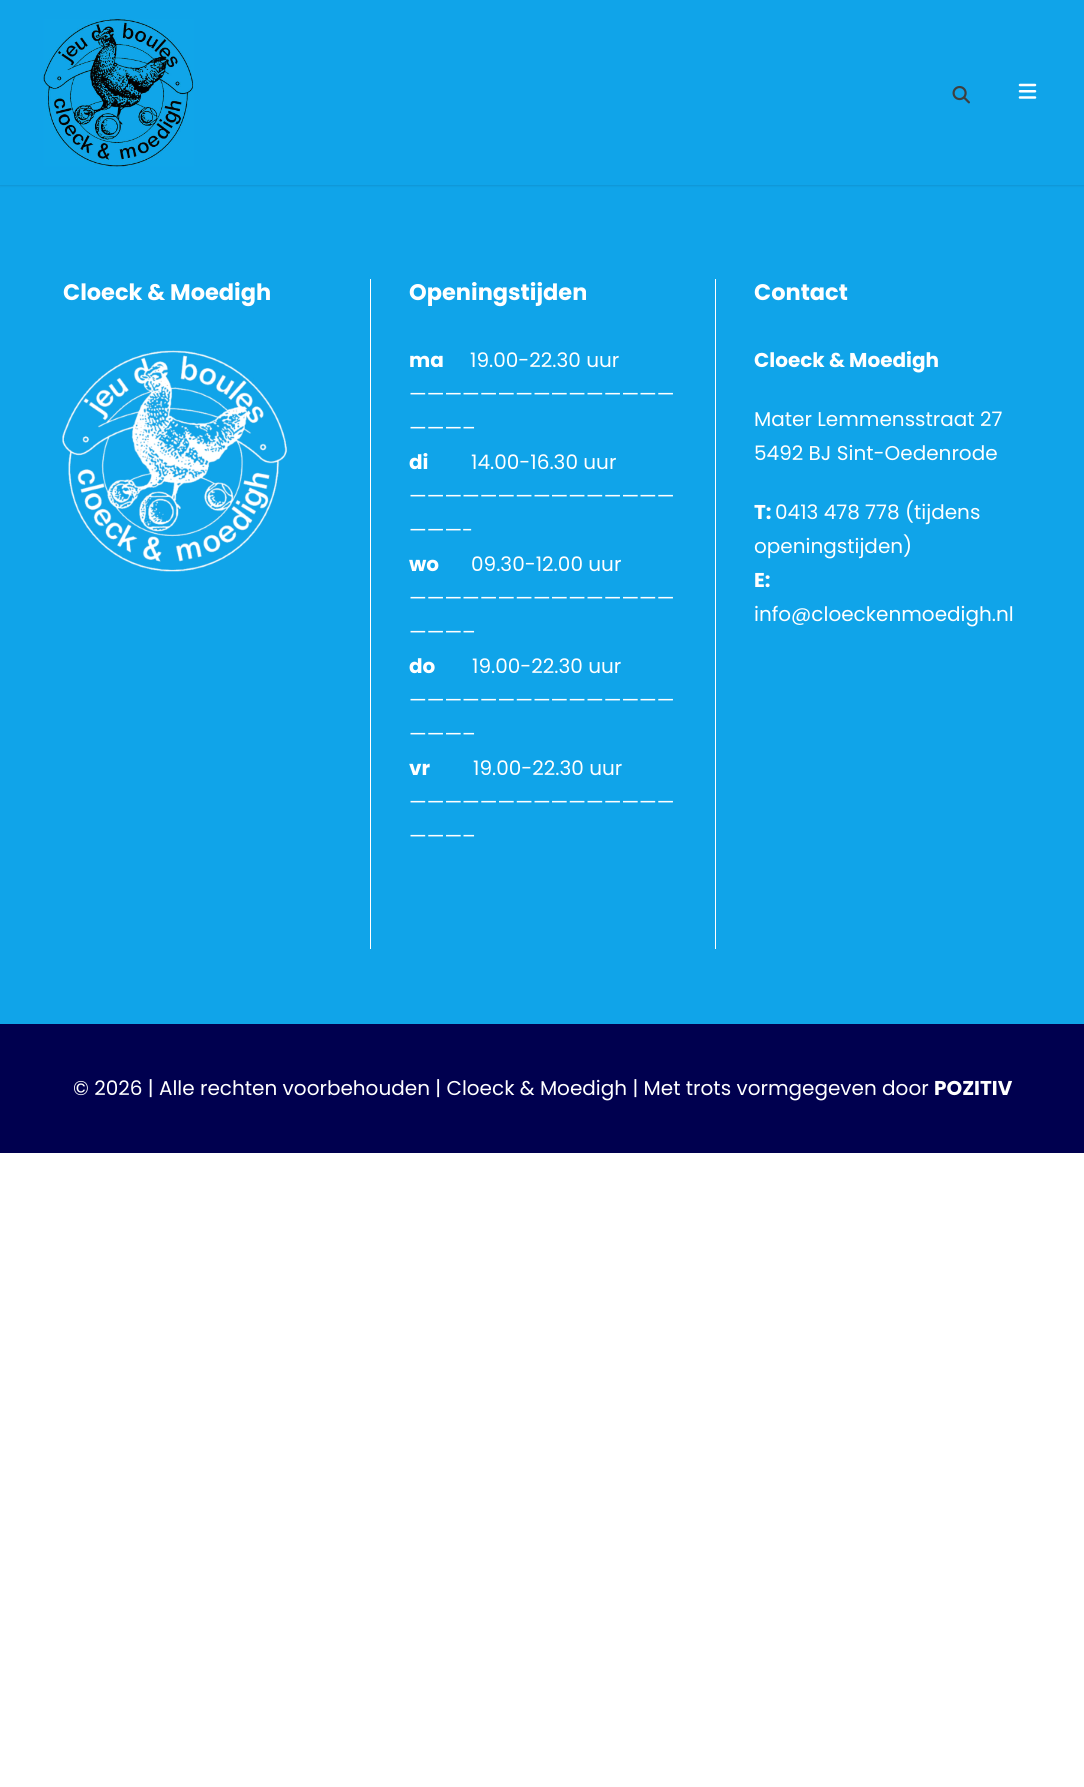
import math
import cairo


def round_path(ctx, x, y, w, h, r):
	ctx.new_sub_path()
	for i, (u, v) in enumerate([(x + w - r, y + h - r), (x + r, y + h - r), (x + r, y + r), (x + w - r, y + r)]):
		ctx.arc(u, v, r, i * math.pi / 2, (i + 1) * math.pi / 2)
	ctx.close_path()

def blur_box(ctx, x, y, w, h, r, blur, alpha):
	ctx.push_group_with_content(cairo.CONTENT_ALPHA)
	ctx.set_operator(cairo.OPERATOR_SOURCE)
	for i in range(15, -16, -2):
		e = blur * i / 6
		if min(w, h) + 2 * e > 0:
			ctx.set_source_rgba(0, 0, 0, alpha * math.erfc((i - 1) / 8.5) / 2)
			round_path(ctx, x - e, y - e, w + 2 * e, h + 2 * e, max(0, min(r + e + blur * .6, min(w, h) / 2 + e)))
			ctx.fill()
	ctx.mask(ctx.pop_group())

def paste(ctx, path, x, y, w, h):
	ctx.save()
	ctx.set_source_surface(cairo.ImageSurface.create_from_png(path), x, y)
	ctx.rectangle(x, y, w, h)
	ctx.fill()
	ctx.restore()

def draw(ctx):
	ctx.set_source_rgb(1, 1, 1)
	ctx.paint()
	ctx.set_source_rgb(0.063, 0.643, 0.914)
	ctx.rectangle(0, 185, 1084, 839)
	ctx.fill()
	ctx.set_source_rgb(0, 0, 0)
	blur_box(ctx, 0, 1, 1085, 185, 0, 1, 0.1)
	ctx.set_source_rgb(0.063, 0.643, 0.914)
	ctx.rectangle(0, 0, 1084, 185)
	ctx.fill()
	paste(ctx, 'media/1.png', 43, 19, 151, 148)
	paste(ctx, 'media/2.png', 952, 85, 18, 19)
	paste(ctx, 'media/3.png', 1018, 83, 19, 16)
	ctx.select_font_face('Poppins', cairo.FONT_SLANT_NORMAL, cairo.FONT_WEIGHT_BOLD)
	ctx.set_font_size(22.5)
	ctx.set_source_rgb(1, 1, 1)
	ctx.move_to(63, 300)
	ctx.show_text('Cloeck & Moedigh')
	paste(ctx, 'media/4.png', 62, 350, 226, 222)
	ctx.rectangle(370, 279, 1, 670)
	ctx.fill()
	ctx.move_to(409, 300)
	ctx.show_text('Openingstijden')
	ctx.set_font_size(20)
	ctx.move_to(409, 367)
	ctx.show_text('ma')
	ctx.select_font_face('Poppins')
	for x, y, s in [
		(470, 367, '19.00-22.30 uur'),
		(409, 401, '———————————————'),
		(409, 435, '———–'),
	]:
		ctx.move_to(x, y)
		ctx.show_text(s)
	ctx.select_font_face('Poppins', cairo.FONT_SLANT_NORMAL, cairo.FONT_WEIGHT_BOLD)
	ctx.move_to(409, 469)
	ctx.show_text('di')
	ctx.select_font_face('Poppins')
	for x, y, s in [
		(471, 469, '14.00-16.30 uur'),
		(409, 503, '———————————————'),
		(409, 537, '———-'),
	]:
		ctx.move_to(x, y)
		ctx.show_text(s)
	ctx.select_font_face('Poppins', cairo.FONT_SLANT_NORMAL, cairo.FONT_WEIGHT_BOLD)
	ctx.move_to(409, 571)
	ctx.show_text('wo')
	ctx.select_font_face('Poppins')
	for x, y, s in [
		(471, 571, '09.30-12.00 uur'),
		(409, 605, '———————————————'),
		(409, 639, '———–'),
	]:
		ctx.move_to(x, y)
		ctx.show_text(s)
	ctx.select_font_face('Poppins', cairo.FONT_SLANT_NORMAL, cairo.FONT_WEIGHT_BOLD)
	ctx.move_to(409, 673)
	ctx.show_text('do')
	ctx.select_font_face('Poppins')
	for x, y, s in [
		(472, 673, '19.00-22.30 uur'),
		(409, 707, '———————————————'),
		(409, 741, '———–'),
	]:
		ctx.move_to(x, y)
		ctx.show_text(s)
	ctx.select_font_face('Poppins', cairo.FONT_SLANT_NORMAL, cairo.FONT_WEIGHT_BOLD)
	ctx.move_to(409, 775)
	ctx.show_text('vr')
	ctx.select_font_face('Poppins')
	for x, y, s in [
		(473, 775, '19.00-22.30 uur'),
		(409, 809, '———————————————'),
		(409, 843, '———–'),
	]:
		ctx.move_to(x, y)
		ctx.show_text(s)
	ctx.rectangle(715, 279, 1, 670)
	ctx.fill()
	ctx.select_font_face('Poppins', cairo.FONT_SLANT_NORMAL, cairo.FONT_WEIGHT_BOLD)
	ctx.set_font_size(22.5)
	ctx.move_to(754, 300)
	ctx.show_text('Contact')
	ctx.set_font_size(20)
	ctx.move_to(754, 367)
	ctx.show_text('Cloeck & Moedigh')
	ctx.select_font_face('Poppins')
	ctx.move_to(754, 426)
	ctx.show_text('Mater Lemmensstraat 27')
	ctx.move_to(754, 460)
	ctx.show_text('5492 BJ Sint-Oedenrode')
	ctx.select_font_face('Poppins', cairo.FONT_SLANT_NORMAL, cairo.FONT_WEIGHT_BOLD)
	ctx.move_to(754, 519)
	ctx.show_text('T:')
	ctx.select_font_face('Poppins')
	ctx.move_to(775, 519)
	ctx.show_text('0413 478 778 (tijdens')
	ctx.move_to(754, 553)
	ctx.show_text('openingstijden)')
	ctx.select_font_face('Poppins', cairo.FONT_SLANT_NORMAL, cairo.FONT_WEIGHT_BOLD)
	ctx.move_to(754, 587)
	ctx.show_text('E:')
	ctx.select_font_face('Poppins')
	ctx.move_to(754, 621)
	ctx.show_text('info@cloeckenmoedigh.nl')
	ctx.set_source_rgb(0, 0, 0.31)
	ctx.rectangle(0, 1024, 1084, 129)
	ctx.fill()
	ctx.set_source_rgb(1, 1, 1)
	ctx.move_to(73, 1095)
	ctx.show_text('© 2026 | Alle rechten voorbehouden | Cloeck & Moedigh | Met trots vormgegeven door')
	ctx.select_font_face('Poppins', cairo.FONT_SLANT_NORMAL, cairo.FONT_WEIGHT_BOLD)
	ctx.move_to(934, 1095)
	ctx.show_text('POZITIV')


surface = cairo.ImageSurface(cairo.FORMAT_RGB24, 1084, 1787)
ctx = cairo.Context(surface)
options = cairo.FontOptions()
options.set_hint_metrics(cairo.HINT_METRICS_OFF)
options.set_hint_style(cairo.HINT_STYLE_NONE)
ctx.set_font_options(options)
ctx.set_miter_limit(4)
draw(ctx)
surface.write_to_png('image.png')
